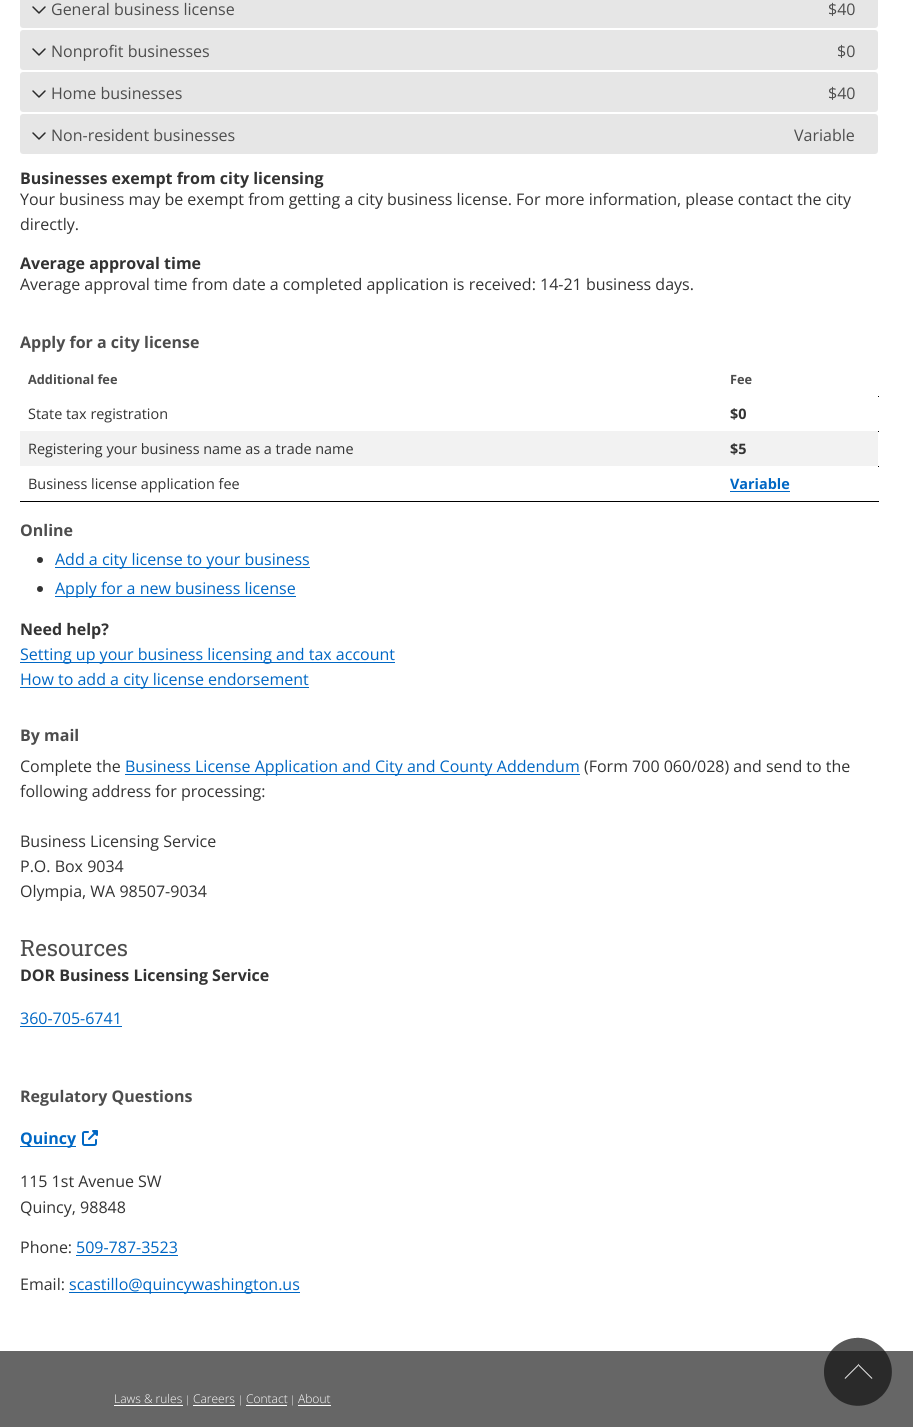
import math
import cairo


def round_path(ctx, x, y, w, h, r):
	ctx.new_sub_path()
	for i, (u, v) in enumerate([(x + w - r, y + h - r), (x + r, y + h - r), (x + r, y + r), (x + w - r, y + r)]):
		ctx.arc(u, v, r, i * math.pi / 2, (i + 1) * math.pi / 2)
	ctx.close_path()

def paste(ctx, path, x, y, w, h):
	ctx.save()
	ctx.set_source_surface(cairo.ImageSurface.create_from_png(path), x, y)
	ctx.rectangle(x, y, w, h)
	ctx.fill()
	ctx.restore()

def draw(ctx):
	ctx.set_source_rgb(1, 1, 1)
	ctx.paint()
	ctx.set_source_rgb(0.902, 0.902, 0.902)
	round_path(ctx, 20, -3, 858, 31, 3)
	ctx.fill()
	paste(ctx, 'media/1.png', 32, 6, 14, 8)
	ctx.select_font_face('Open Sans')
	ctx.set_font_size(16)
	ctx.set_source_rgb(0.302, 0.302, 0.302)
	ctx.move_to(51, 15)
	ctx.show_text('General business license')
	ctx.move_to(828, 15)
	ctx.show_text('$40')
	ctx.set_source_rgb(0.902, 0.902, 0.902)
	round_path(ctx, 20, 30, 858, 40, 3)
	ctx.fill()
	paste(ctx, 'media/1.png', 32, 48, 14, 8)
	ctx.set_source_rgb(0.302, 0.302, 0.302)
	ctx.move_to(51, 57)
	ctx.show_text('Nonprofit businesses')
	ctx.move_to(837, 57)
	ctx.show_text('$0')
	ctx.set_source_rgb(0.902, 0.902, 0.902)
	round_path(ctx, 20, 72, 858, 40, 3)
	ctx.fill()
	paste(ctx, 'media/1.png', 32, 90, 14, 8)
	ctx.set_source_rgb(0.302, 0.302, 0.302)
	ctx.move_to(51, 99)
	ctx.show_text('Home businesses')
	ctx.move_to(828, 99)
	ctx.show_text('$40')
	ctx.set_source_rgb(0.902, 0.902, 0.902)
	round_path(ctx, 20, 114, 858, 40, 3)
	ctx.fill()
	paste(ctx, 'media/1.png', 32, 132, 14, 8)
	ctx.set_source_rgb(0.302, 0.302, 0.302)
	ctx.move_to(51, 141)
	ctx.show_text('Non-resident businesses')
	ctx.move_to(794, 141)
	ctx.show_text('Variable')
	ctx.select_font_face('Open Sans', cairo.FONT_SLANT_NORMAL, cairo.FONT_WEIGHT_BOLD)
	ctx.set_source_rgb(0.2, 0.2, 0.2)
	ctx.move_to(20, 184)
	ctx.show_text('Businesses exempt from city licensing')
	ctx.select_font_face('Open Sans')
	ctx.move_to(20, 205)
	ctx.show_text('Your business may be exempt from getting a city business license. For more information, please contact the city')
	ctx.move_to(20, 230)
	ctx.show_text('directly.')
	ctx.select_font_face('Open Sans', cairo.FONT_SLANT_NORMAL, cairo.FONT_WEIGHT_BOLD)
	ctx.move_to(20, 269)
	ctx.show_text('Average approval time')
	ctx.select_font_face('Open Sans')
	ctx.move_to(20, 290)
	ctx.show_text('Average approval time from date a completed application is received: 14-21 business days.')
	ctx.select_font_face('Open Sans', cairo.FONT_SLANT_NORMAL, cairo.FONT_WEIGHT_BOLD)
	ctx.set_source_rgb(0.302, 0.302, 0.302)
	ctx.move_to(20, 348)
	ctx.show_text('Apply for a city license')
	ctx.set_font_size(12.75)
	ctx.move_to(28, 384)
	ctx.show_text('Additional fee')
	ctx.set_source_rgb(0, 0, 0)
	ctx.rectangle(878, 396, 1, 1)
	ctx.fill()
	ctx.set_source_rgb(0.302, 0.302, 0.302)
	ctx.move_to(730, 384)
	ctx.show_text('Fee')
	ctx.select_font_face('Open Sans')
	ctx.set_font_size(14.4)
	ctx.set_source_rgb(0.2, 0.2, 0.2)
	ctx.move_to(28, 419)
	ctx.show_text('State tax registration')
	ctx.set_source_rgb(0, 0, 0)
	ctx.rectangle(878, 431, 1, 1)
	ctx.fill()
	ctx.select_font_face('Open Sans', cairo.FONT_SLANT_NORMAL, cairo.FONT_WEIGHT_BOLD)
	ctx.set_source_rgb(0.2, 0.2, 0.2)
	ctx.move_to(730, 419)
	ctx.show_text('$0')
	ctx.set_source_rgb(0.949, 0.949, 0.949)
	ctx.rectangle(20, 431, 858, 35)
	ctx.fill()
	ctx.select_font_face('Open Sans')
	ctx.set_source_rgb(0.2, 0.2, 0.2)
	ctx.move_to(28, 454)
	ctx.show_text('Registering your business name as a trade name')
	ctx.set_source_rgb(0, 0, 0)
	ctx.rectangle(878, 466, 1, 1)
	ctx.fill()
	ctx.select_font_face('Open Sans', cairo.FONT_SLANT_NORMAL, cairo.FONT_WEIGHT_BOLD)
	ctx.set_source_rgb(0.2, 0.2, 0.2)
	ctx.move_to(730, 454)
	ctx.show_text('$5')
	ctx.select_font_face('Open Sans')
	ctx.move_to(28, 489)
	ctx.show_text('Business license application fee')
	ctx.set_source_rgb(0, 0, 0)
	ctx.rectangle(20, 501, 859, 1)
	ctx.fill()
	ctx.select_font_face('Open Sans', cairo.FONT_SLANT_NORMAL, cairo.FONT_WEIGHT_BOLD)
	ctx.set_source_rgb(0, 0.404, 0.769)
	ctx.move_to(730, 489)
	ctx.show_text('Variable')
	ctx.rectangle(730, 491, 60, 1)
	ctx.fill()
	ctx.set_font_size(16)
	ctx.set_source_rgb(0.302, 0.302, 0.302)
	ctx.move_to(20, 536)
	ctx.show_text('Online')
	ctx.set_source_rgb(0.2, 0.2, 0.2)
	ctx.new_path()
	ctx.arc(40, 560, 3, 0, 2 * math.pi)
	ctx.fill()
	ctx.set_source_rgb(0, 0.404, 0.769)
	ctx.rectangle(55, 567, 255, 1)
	ctx.fill()
	ctx.select_font_face('Open Sans')
	ctx.move_to(55, 565)
	ctx.show_text('Add a city license to your business')
	ctx.set_source_rgb(0.2, 0.2, 0.2)
	ctx.new_path()
	ctx.arc(40, 589, 3, 0, 2 * math.pi)
	ctx.fill()
	ctx.set_source_rgb(0, 0.404, 0.769)
	ctx.rectangle(55, 596, 241, 1)
	ctx.fill()
	ctx.move_to(55, 594)
	ctx.show_text('Apply for a new business license')
	ctx.select_font_face('Open Sans', cairo.FONT_SLANT_NORMAL, cairo.FONT_WEIGHT_BOLD)
	ctx.set_source_rgb(0.2, 0.2, 0.2)
	ctx.move_to(20, 635)
	ctx.show_text('Need help?')
	ctx.set_source_rgb(0, 0.404, 0.769)
	ctx.rectangle(20, 662, 375, 1)
	ctx.fill()
	ctx.select_font_face('Open Sans')
	ctx.move_to(20, 660)
	ctx.show_text('Setting up your business licensing and tax account')
	ctx.rectangle(20, 687, 289, 1)
	ctx.fill()
	ctx.move_to(20, 685)
	ctx.show_text('How to add a city license endorsement')
	ctx.select_font_face('Open Sans', cairo.FONT_SLANT_NORMAL, cairo.FONT_WEIGHT_BOLD)
	ctx.set_source_rgb(0.302, 0.302, 0.302)
	ctx.move_to(20, 741)
	ctx.show_text('By mail')
	ctx.select_font_face('Open Sans')
	ctx.set_source_rgb(0.2, 0.2, 0.2)
	ctx.move_to(20, 772)
	ctx.show_text('Complete the')
	ctx.set_source_rgb(0, 0.404, 0.769)
	ctx.rectangle(125, 774, 455, 1)
	ctx.fill()
	ctx.move_to(125, 772)
	ctx.show_text('Business License Application and City and County Addendum')
	ctx.set_source_rgb(0.2, 0.2, 0.2)
	for x, y, s in [
		(584, 772, '(Form 700 060/028) and send to the'),
		(20, 797, 'following address for processing:'),
		(20, 847, 'Business Licensing Service'),
		(20, 872, 'P.O. Box 9034'),
		(20, 897, 'Olympia, WA 98507-9034'),
	]:
		ctx.move_to(x, y)
		ctx.show_text(s)
	ctx.select_font_face('Roboto Slab')
	ctx.set_font_size(22.5)
	ctx.set_source_rgb(0.302, 0.302, 0.302)
	ctx.move_to(20, 956)
	ctx.show_text('Resources')
	ctx.select_font_face('Open Sans', cairo.FONT_SLANT_NORMAL, cairo.FONT_WEIGHT_BOLD)
	ctx.set_font_size(16)
	ctx.set_source_rgb(0.2, 0.2, 0.2)
	ctx.move_to(20, 981)
	ctx.show_text('DOR Business Licensing Service')
	ctx.select_font_face('Open Sans')
	ctx.set_source_rgb(0, 0.404, 0.769)
	ctx.move_to(20, 1024)
	ctx.show_text('360-705-6741')
	ctx.rectangle(20, 1026, 102, 1)
	ctx.fill()
	ctx.select_font_face('Open Sans', cairo.FONT_SLANT_NORMAL, cairo.FONT_WEIGHT_BOLD)
	ctx.set_source_rgb(0.302, 0.302, 0.302)
	ctx.move_to(20, 1102)
	ctx.show_text('Regulatory Questions')
	ctx.set_source_rgb(0, 0.404, 0.769)
	ctx.rectangle(20, 1146, 56, 1)
	ctx.fill()
	ctx.move_to(20, 1144)
	ctx.show_text('Quincy')
	paste(ctx, 'media/2.png', 82, 1130, 16, 16)
	ctx.select_font_face('Open Sans')
	ctx.set_source_rgb(0.2, 0.2, 0.2)
	for x, y, s in [
		(20, 1187, '115 1st Avenue SW'),
		(20, 1213, 'Quincy, 98848'),
		(20, 1253, 'Phone:'),
	]:
		ctx.move_to(x, y)
		ctx.show_text(s)
	ctx.set_source_rgb(0, 0.404, 0.769)
	ctx.move_to(76, 1253)
	ctx.show_text('509-787-3523')
	ctx.rectangle(76, 1255, 102, 1)
	ctx.fill()
	ctx.set_source_rgb(0.2, 0.2, 0.2)
	ctx.move_to(20, 1290)
	ctx.show_text('Email:')
	ctx.set_source_rgb(0, 0.404, 0.769)
	ctx.rectangle(69, 1292, 231, 1)
	ctx.fill()
	ctx.move_to(69, 1290)
	ctx.show_text('scastillo@quincywashington.us')
	ctx.set_source_rgb(0.4, 0.4, 0.4)
	ctx.rectangle(0, 1351, 913, 76)
	ctx.fill()
	ctx.select_font_face('Open Sans Light')
	ctx.set_font_size(12)
	ctx.set_source_rgb(1, 1, 1)
	ctx.move_to(114, 1403)
	ctx.show_text('Laws & rules')
	ctx.rectangle(114, 1405, 69, 1)
	ctx.fill()
	ctx.set_font_size(10)
	ctx.move_to(185, 1403)
	ctx.show_text('|')
	ctx.set_font_size(12)
	ctx.move_to(193, 1403)
	ctx.show_text('Careers')
	ctx.rectangle(193, 1405, 42, 1)
	ctx.fill()
	ctx.set_font_size(10)
	ctx.move_to(238, 1403)
	ctx.show_text('|')
	ctx.set_font_size(12)
	ctx.move_to(246, 1403)
	ctx.show_text('Contact')
	ctx.rectangle(246, 1405, 41, 1)
	ctx.fill()
	ctx.set_font_size(10)
	ctx.move_to(290, 1403)
	ctx.show_text('|')
	ctx.set_font_size(12)
	ctx.move_to(298, 1403)
	ctx.show_text('About')
	ctx.rectangle(298, 1405, 33, 1)
	ctx.fill()
	paste(ctx, 'media/3.png', 824, 1337, 68, 69)


surface = cairo.ImageSurface(cairo.FORMAT_RGB24, 913, 1427)
ctx = cairo.Context(surface)
options = cairo.FontOptions()
options.set_hint_metrics(cairo.HINT_METRICS_OFF)
options.set_hint_style(cairo.HINT_STYLE_NONE)
ctx.set_font_options(options)
ctx.set_miter_limit(4)
draw(ctx)
surface.write_to_png('image.png')
